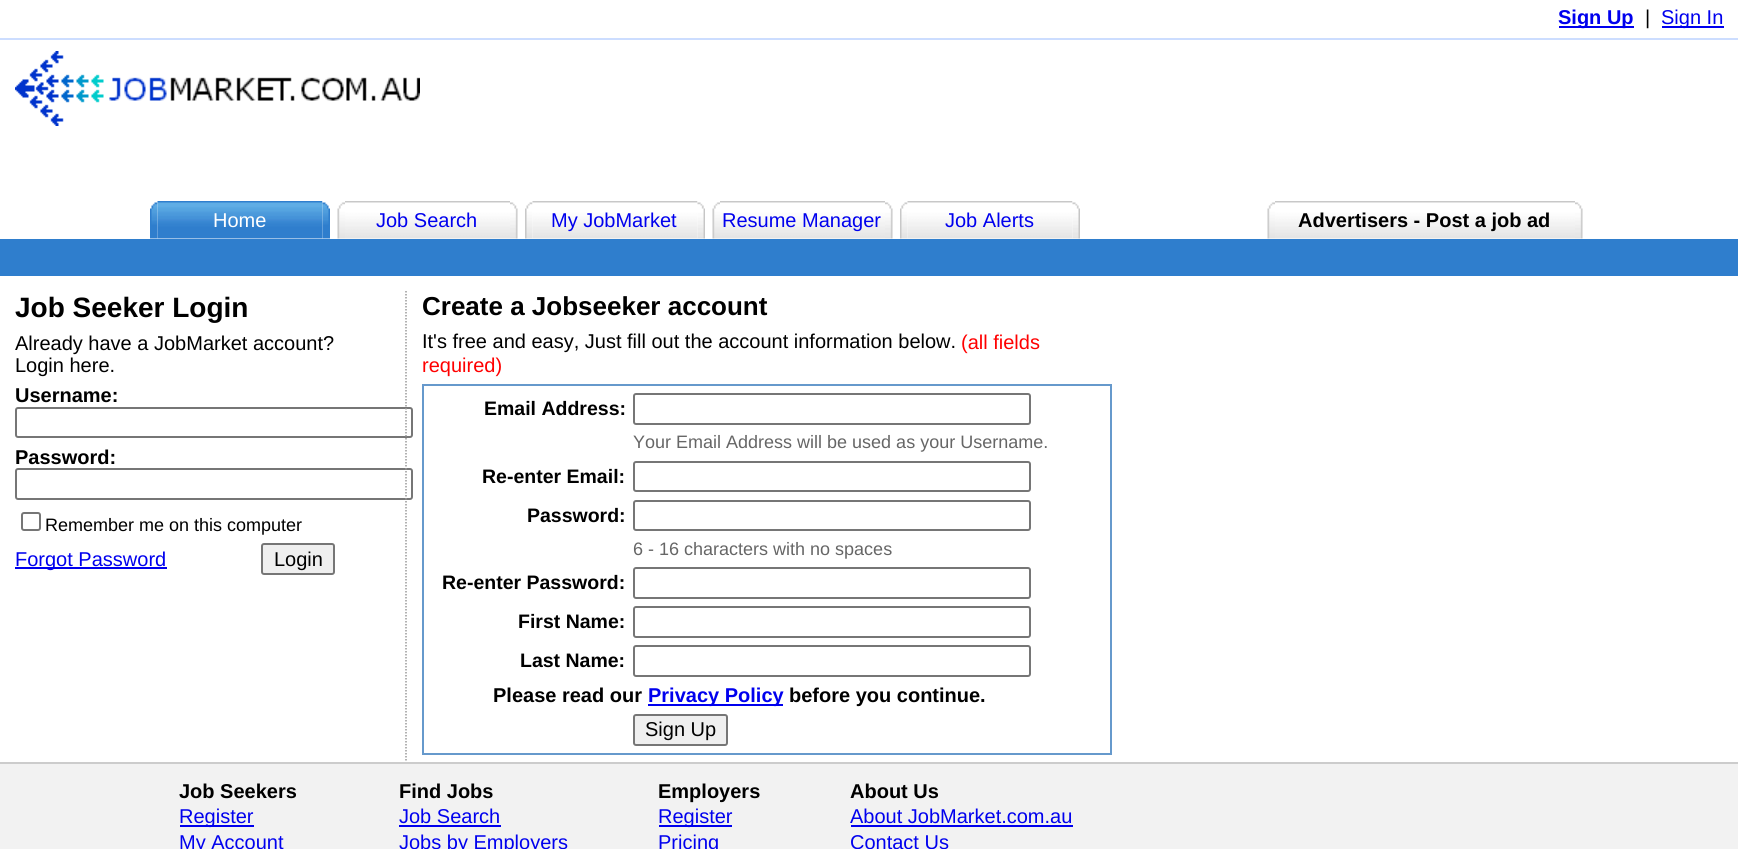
import math
import cairo


def round_path(ctx, x, y, w, h, r):
	ctx.new_sub_path()
	for i, (u, v) in enumerate([(x + w - r, y + h - r), (x + r, y + h - r), (x + r, y + r), (x + w - r, y + r)]):
		ctx.arc(u, v, r, i * math.pi / 2, (i + 1) * math.pi / 2)
	ctx.close_path()

def paste(ctx, path, x, y, w, h):
	ctx.save()
	ctx.set_source_surface(cairo.ImageSurface.create_from_png(path), x, y)
	ctx.rectangle(x, y, w, h)
	ctx.fill()
	ctx.restore()

def draw(ctx):
	ctx.set_source_rgb(1, 1, 1)
	ctx.paint()
	ctx.set_source_rgb(0, 0, 0.933)
	ctx.rectangle(1559, 26, 75, 2)
	ctx.fill()
	ctx.select_font_face('Liberation Sans', cairo.FONT_SLANT_NORMAL, cairo.FONT_WEIGHT_BOLD)
	ctx.set_font_size(20)
	ctx.move_to(1558, 24)
	ctx.show_text('Sign Up')
	ctx.select_font_face('Liberation Sans')
	ctx.set_source_rgb(0, 0, 0)
	ctx.move_to(1645, 24)
	ctx.show_text('|')
	ctx.set_source_rgb(0, 0, 0.933)
	ctx.rectangle(1662, 26, 62, 2)
	ctx.fill()
	ctx.move_to(1661, 24)
	ctx.show_text('Sign In')
	ctx.set_source_rgb(0.8, 0.867, 1)
	ctx.rectangle(0, 38, 1738, 2)
	ctx.fill()
	paste(ctx, 'media/1.png', 15, 51, 405, 75)
	paste(ctx, 'media/2.png', 150, 202, 8, 37)
	paste(ctx, 'media/3.png', 157, 201, 166, 38)
	ctx.set_source_rgb(1, 1, 1)
	ctx.move_to(213, 227)
	ctx.show_text('Home')
	paste(ctx, 'media/4.png', 322, 201, 8, 38)
	paste(ctx, 'media/5.png', 337, 202, 8, 37)
	paste(ctx, 'media/6.png', 345, 201, 165, 38)
	ctx.set_source_rgb(0, 0, 0.933)
	ctx.move_to(376, 227)
	ctx.show_text('Job Search')
	paste(ctx, 'media/7.png', 510, 202, 8, 37)
	paste(ctx, 'media/8.png', 525, 202, 8, 37)
	paste(ctx, 'media/9.png', 532, 201, 166, 38)
	ctx.move_to(551, 227)
	ctx.show_text('My JobMarket')
	paste(ctx, 'media/10.png', 697, 201, 8, 38)
	paste(ctx, 'media/11.png', 712, 202, 8, 37)
	paste(ctx, 'media/12.png', 720, 201, 165, 38)
	ctx.move_to(722, 227)
	ctx.show_text('Resume Manager')
	paste(ctx, 'media/7.png', 885, 202, 8, 37)
	paste(ctx, 'media/13.png', 900, 202, 8, 37)
	paste(ctx, 'media/14.png', 907, 201, 166, 38)
	ctx.move_to(945, 227)
	ctx.show_text('Job Alerts')
	paste(ctx, 'media/15.png', 1072, 201, 8, 38)
	paste(ctx, 'media/5.png', 1267, 202, 8, 37)
	paste(ctx, 'media/16.png', 1275, 201, 300, 38)
	ctx.select_font_face('Liberation Sans', cairo.FONT_SLANT_NORMAL, cairo.FONT_WEIGHT_BOLD)
	ctx.set_source_rgb(0, 0, 0)
	ctx.move_to(1298, 227)
	ctx.show_text('Advertisers - Post a job ad')
	paste(ctx, 'media/7.png', 1575, 202, 8, 37)
	ctx.set_source_rgb(0.184, 0.494, 0.804)
	ctx.rectangle(0, 239, 1738, 37)
	ctx.fill()
	ctx.set_font_size(28)
	ctx.set_source_rgb(0, 0, 0)
	ctx.move_to(15, 317)
	ctx.show_text('Job Seeker Login')
	ctx.select_font_face('Liberation Sans')
	ctx.set_font_size(20)
	ctx.move_to(15, 350)
	ctx.show_text('Already have a JobMarket account?')
	ctx.move_to(15, 372)
	ctx.show_text('Login here.')
	ctx.select_font_face('Liberation Sans', cairo.FONT_SLANT_NORMAL, cairo.FONT_WEIGHT_BOLD)
	ctx.move_to(15, 402)
	ctx.show_text('Username:')
	round_path(ctx, 16, 408, 396, 29, 2)
	ctx.set_source_rgb(0.463, 0.463, 0.463)
	ctx.stroke()
	ctx.set_source_rgb(0, 0, 0)
	ctx.move_to(15, 464)
	ctx.show_text('Password:')
	round_path(ctx, 16, 469, 396, 30, 2)
	ctx.set_source_rgb(0.463, 0.463, 0.463)
	ctx.stroke()
	round_path(ctx, 22, 513, 18, 17, 2)
	ctx.stroke()
	ctx.select_font_face('Liberation Sans')
	ctx.set_font_size(18)
	ctx.set_source_rgb(0, 0, 0)
	ctx.move_to(45, 531)
	ctx.show_text('Remember me on this computer')
	ctx.set_source_rgb(0, 0, 0.933)
	ctx.rectangle(15, 567, 152, 2)
	ctx.fill()
	ctx.set_font_size(20)
	ctx.move_to(15, 566)
	ctx.show_text('Forgot Password')
	ctx.set_source_rgb(0.937, 0.937, 0.937)
	round_path(ctx, 262, 544, 72, 30, 2)
	ctx.fill_preserve()
	ctx.set_source_rgb(0.463, 0.463, 0.463)
	ctx.stroke()
	ctx.set_source_rgb(0, 0, 0)
	ctx.move_to(274, 566)
	ctx.show_text('Login')
	ctx.new_path()
	ctx.move_to(406, 291)
	ctx.line_to(406, 762)
	ctx.set_source_rgb(0.6, 0.6, 0.6)
	ctx.set_line_width(1.5)
	ctx.set_dash([1.5, 1.5])
	ctx.stroke()
	ctx.select_font_face('Liberation Sans', cairo.FONT_SLANT_NORMAL, cairo.FONT_WEIGHT_BOLD)
	ctx.set_font_size(26)
	ctx.set_source_rgb(0, 0, 0)
	ctx.move_to(422, 315)
	ctx.show_text('Create a Jobseeker account')
	ctx.select_font_face('Liberation Sans')
	ctx.set_font_size(20)
	ctx.move_to(422, 348)
	ctx.show_text('It\'s free and easy, Just fill out the account information below.')
	ctx.set_source_rgb(1, 0, 0)
	ctx.move_to(961, 349)
	ctx.show_text('(all fields')
	ctx.move_to(422, 372)
	ctx.show_text('required)')
	ctx.rectangle(423, 385, 688, 369)
	ctx.set_source_rgb(0.4, 0.6, 0.8)
	ctx.set_line_width(2)
	ctx.set_dash([])
	ctx.stroke()
	ctx.select_font_face('Liberation Sans', cairo.FONT_SLANT_NORMAL, cairo.FONT_WEIGHT_BOLD)
	ctx.set_font_size(19.5)
	ctx.set_source_rgb(0, 0, 0)
	ctx.move_to(484, 415)
	ctx.show_text('Email Address:')
	round_path(ctx, 634, 394, 396, 30, 2)
	ctx.set_source_rgb(0.463, 0.463, 0.463)
	ctx.stroke()
	ctx.select_font_face('Liberation Sans')
	ctx.set_font_size(18)
	ctx.set_source_rgb(0.4, 0.4, 0.4)
	ctx.move_to(633, 448)
	ctx.show_text('Your Email Address will be used as your Username.')
	ctx.select_font_face('Liberation Sans', cairo.FONT_SLANT_NORMAL, cairo.FONT_WEIGHT_BOLD)
	ctx.set_font_size(19.5)
	ctx.set_source_rgb(0, 0, 0)
	ctx.move_to(482, 483)
	ctx.show_text('Re-enter Email:')
	round_path(ctx, 634, 462, 396, 29, 2)
	ctx.set_source_rgb(0.463, 0.463, 0.463)
	ctx.stroke()
	ctx.set_source_rgb(0, 0, 0)
	ctx.move_to(527, 522)
	ctx.show_text('Password:')
	round_path(ctx, 634, 501, 396, 29, 2)
	ctx.set_source_rgb(0.463, 0.463, 0.463)
	ctx.stroke()
	ctx.select_font_face('Liberation Sans')
	ctx.set_font_size(18)
	ctx.set_source_rgb(0.4, 0.4, 0.4)
	ctx.move_to(633, 555)
	ctx.show_text('6 - 16 characters with no spaces')
	ctx.select_font_face('Liberation Sans', cairo.FONT_SLANT_NORMAL, cairo.FONT_WEIGHT_BOLD)
	ctx.set_font_size(19.5)
	ctx.set_source_rgb(0, 0, 0)
	ctx.move_to(442, 589)
	ctx.show_text('Re-enter Password:')
	round_path(ctx, 634, 568, 396, 30, 2)
	ctx.set_source_rgb(0.463, 0.463, 0.463)
	ctx.stroke()
	ctx.set_source_rgb(0, 0, 0)
	ctx.move_to(518, 628)
	ctx.show_text('First Name:')
	round_path(ctx, 634, 607, 396, 30, 2)
	ctx.set_source_rgb(0.463, 0.463, 0.463)
	ctx.stroke()
	ctx.set_source_rgb(0, 0, 0)
	ctx.move_to(520, 667)
	ctx.show_text('Last Name:')
	round_path(ctx, 634, 646, 396, 30, 2)
	ctx.set_source_rgb(0.463, 0.463, 0.463)
	ctx.stroke()
	ctx.set_font_size(20)
	ctx.set_source_rgb(0, 0, 0)
	ctx.move_to(493, 702)
	ctx.show_text('Please read our')
	ctx.set_source_rgb(0, 0, 0.933)
	ctx.rectangle(648, 704, 135, 2)
	ctx.fill()
	ctx.move_to(648, 702)
	ctx.show_text('Privacy Policy')
	ctx.set_source_rgb(0, 0, 0)
	ctx.move_to(789, 702)
	ctx.show_text('before you continue.')
	ctx.set_source_rgb(0.937, 0.937, 0.937)
	round_path(ctx, 634, 715, 93, 30, 2)
	ctx.fill_preserve()
	ctx.set_source_rgb(0.463, 0.463, 0.463)
	ctx.stroke()
	ctx.select_font_face('Liberation Sans')
	ctx.set_source_rgb(0, 0, 0)
	ctx.move_to(645, 736)
	ctx.show_text('Sign Up')
	ctx.set_source_rgb(0.949, 0.949, 0.949)
	ctx.rectangle(0, 764, 1738, 85)
	ctx.fill()
	ctx.set_source_rgb(0.8, 0.8, 0.8)
	ctx.rectangle(0, 762, 1738, 2)
	ctx.fill()
	ctx.select_font_face('Liberation Sans', cairo.FONT_SLANT_NORMAL, cairo.FONT_WEIGHT_BOLD)
	ctx.set_source_rgb(0, 0, 0)
	ctx.move_to(179, 798)
	ctx.show_text('Job Seekers')
	ctx.set_source_rgb(0, 0, 0.933)
	ctx.rectangle(180, 825, 74, 2)
	ctx.fill()
	ctx.select_font_face('Liberation Sans')
	ctx.move_to(179, 823)
	ctx.show_text('Register')
	ctx.move_to(179, 849)
	ctx.show_text('My Account')
	ctx.select_font_face('Liberation Sans', cairo.FONT_SLANT_NORMAL, cairo.FONT_WEIGHT_BOLD)
	ctx.set_source_rgb(0, 0, 0)
	ctx.move_to(399, 798)
	ctx.show_text('Find Jobs')
	ctx.select_font_face('Liberation Sans')
	ctx.set_source_rgb(0, 0, 0.933)
	ctx.move_to(399, 823)
	ctx.show_text('Job Search')
	ctx.rectangle(399, 825, 102, 2)
	ctx.fill()
	ctx.move_to(399, 849)
	ctx.show_text('Jobs by Employers')
	ctx.select_font_face('Liberation Sans', cairo.FONT_SLANT_NORMAL, cairo.FONT_WEIGHT_BOLD)
	ctx.set_source_rgb(0, 0, 0)
	ctx.move_to(658, 798)
	ctx.show_text('Employers')
	ctx.set_source_rgb(0, 0, 0.933)
	ctx.rectangle(659, 825, 73, 2)
	ctx.fill()
	ctx.select_font_face('Liberation Sans')
	ctx.move_to(658, 823)
	ctx.show_text('Register')
	ctx.move_to(658, 849)
	ctx.show_text('Pricing')
	ctx.select_font_face('Liberation Sans', cairo.FONT_SLANT_NORMAL, cairo.FONT_WEIGHT_BOLD)
	ctx.set_source_rgb(0, 0, 0)
	ctx.move_to(850, 798)
	ctx.show_text('About Us')
	ctx.select_font_face('Liberation Sans')
	ctx.set_source_rgb(0, 0, 0.933)
	ctx.move_to(850, 823)
	ctx.show_text('About JobMarket.com.au')
	ctx.rectangle(851, 825, 222, 2)
	ctx.fill()
	ctx.move_to(850, 849)
	ctx.show_text('Contact Us')


surface = cairo.ImageSurface(cairo.FORMAT_RGB24, 1738, 849)
ctx = cairo.Context(surface)
options = cairo.FontOptions()
options.set_hint_metrics(cairo.HINT_METRICS_OFF)
options.set_hint_style(cairo.HINT_STYLE_NONE)
ctx.set_font_options(options)
ctx.set_miter_limit(4)
draw(ctx)
surface.write_to_png('image.png')
